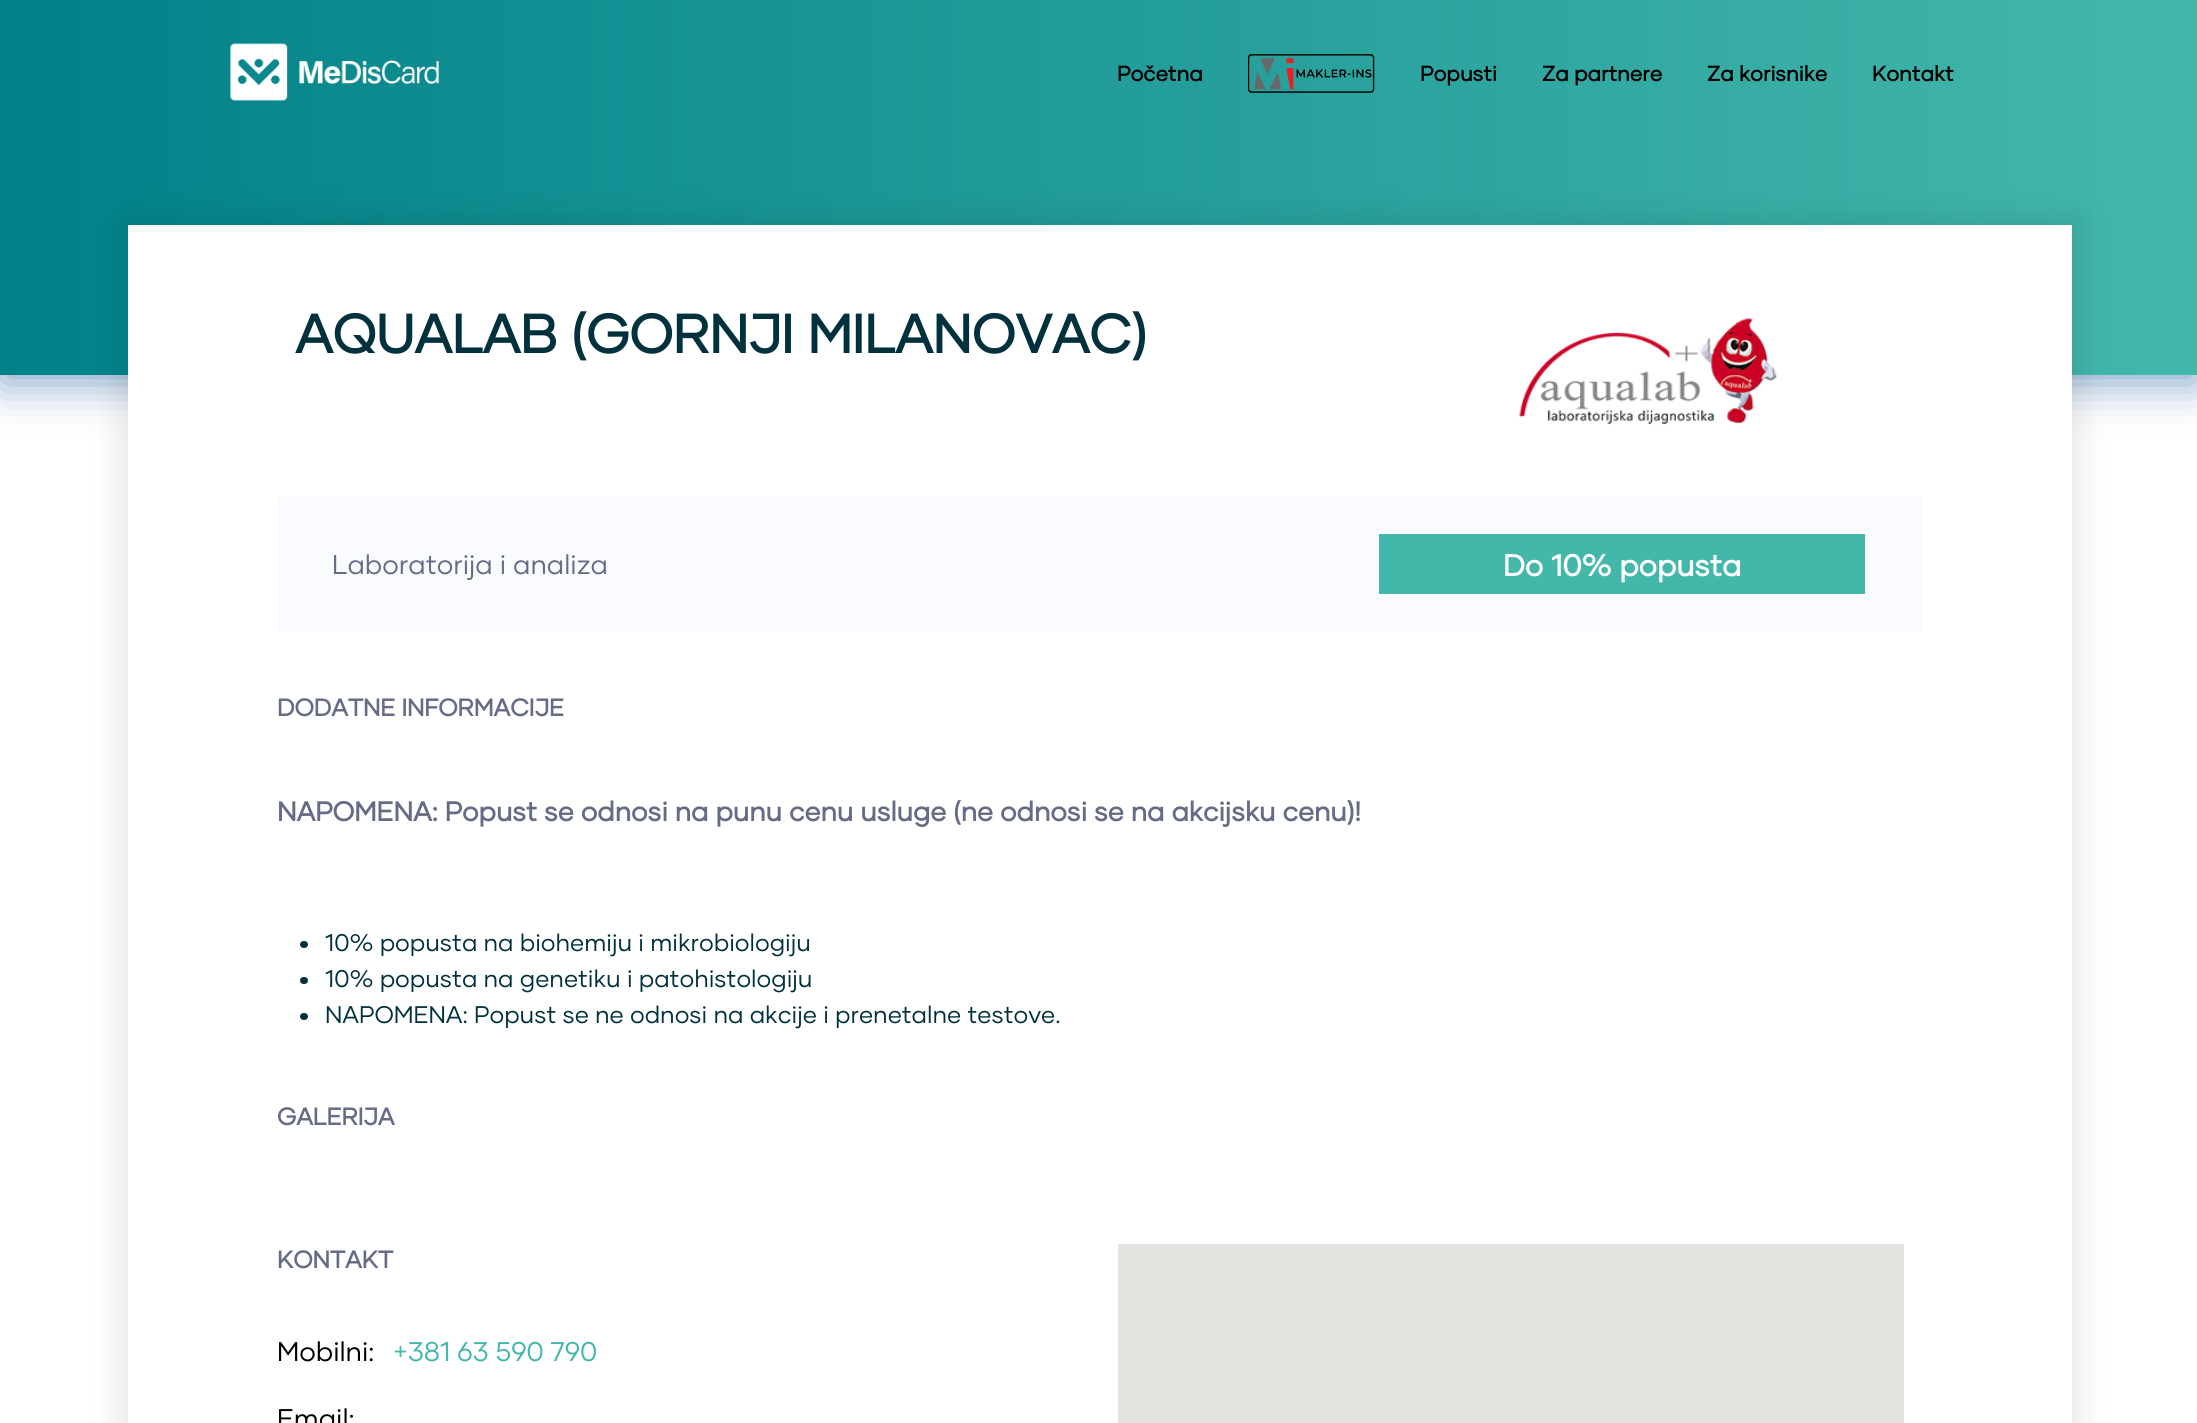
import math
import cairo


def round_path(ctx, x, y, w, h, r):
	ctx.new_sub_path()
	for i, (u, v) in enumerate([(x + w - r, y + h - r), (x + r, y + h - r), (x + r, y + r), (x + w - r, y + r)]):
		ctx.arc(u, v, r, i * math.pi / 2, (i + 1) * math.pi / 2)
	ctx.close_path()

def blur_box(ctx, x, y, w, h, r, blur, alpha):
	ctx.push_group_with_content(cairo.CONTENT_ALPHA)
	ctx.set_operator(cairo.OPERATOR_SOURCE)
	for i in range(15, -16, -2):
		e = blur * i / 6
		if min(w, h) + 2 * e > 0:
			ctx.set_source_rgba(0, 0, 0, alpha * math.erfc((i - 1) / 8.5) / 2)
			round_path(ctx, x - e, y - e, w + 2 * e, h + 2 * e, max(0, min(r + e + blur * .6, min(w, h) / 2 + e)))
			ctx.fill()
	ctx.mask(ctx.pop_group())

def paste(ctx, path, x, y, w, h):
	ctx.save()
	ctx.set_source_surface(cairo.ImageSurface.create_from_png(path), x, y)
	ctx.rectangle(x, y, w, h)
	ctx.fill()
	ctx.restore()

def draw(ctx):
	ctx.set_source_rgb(1, 1, 1)
	ctx.paint()
	ctx.set_source_rgb(0.11, 0.361, 0.62)
	blur_box(ctx, 0, 8, 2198, 375, 0, 22.5, 0.56)
	gradient = cairo.LinearGradient(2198, 187, 0, 188)
	gradient.add_color_stop_rgba(0, 0.267, 0.718, 0.671, 1)
	gradient.add_color_stop_rgba(1, 0, 0.506, 0.537, 1)
	ctx.set_source(gradient)
	ctx.rectangle(0, 0, 2197, 375)
	ctx.fill()
	paste(ctx, 'media/1.png', 230, 43, 210, 58)
	ctx.select_font_face('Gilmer', cairo.FONT_SLANT_NORMAL, cairo.FONT_WEIGHT_BOLD)
	ctx.set_font_size(21)
	ctx.set_source_rgb(0, 0, 0)
	ctx.move_to(1117, 81)
	ctx.show_text('Početna')
	paste(ctx, 'media/2.png', 1248, 54, 127, 39)
	for x, y, s in [
		(1420, 81, 'Popusti'),
		(1542, 81, 'Za partnere'),
		(1707, 81, 'Za korisnike'),
		(1872, 81, 'Kontakt'),
	]:
		ctx.move_to(x, y)
		ctx.show_text(s)
	ctx.set_source_rgb(0, 0, 0)
	blur_box(ctx, 120, 218, 1959, 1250, 0, 15, 0.1)
	ctx.set_source_rgb(1, 1, 1)
	ctx.rectangle(128, 225, 1944, 1198)
	ctx.fill()
	ctx.set_font_size(54)
	ctx.set_source_rgb(0, 0.192, 0.235)
	ctx.move_to(295, 353)
	ctx.show_text('AQUALAB (GORNJI MILANOVAC)')
	paste(ctx, 'media/3.png', 1519, 318, 258, 107)
	ctx.set_source_rgb(0.976, 0.984, 1)
	ctx.rectangle(278, 497, 1644, 135)
	ctx.fill()
	ctx.select_font_face('Gilmer')
	ctx.set_font_size(27)
	ctx.set_source_rgb(0.4, 0.42, 0.525)
	ctx.move_to(332, 574)
	ctx.show_text('Laboratorija i analiza')
	ctx.set_source_rgb(0.267, 0.718, 0.671)
	ctx.rectangle(1379, 534, 486, 60)
	ctx.fill()
	ctx.select_font_face('Gilmer', cairo.FONT_SLANT_NORMAL, cairo.FONT_WEIGHT_BOLD)
	ctx.set_font_size(30)
	ctx.set_source_rgb(1, 1, 1)
	ctx.move_to(1503, 576)
	ctx.show_text('Do 10% popusta')
	ctx.set_font_size(24)
	ctx.set_source_rgb(0.4, 0.42, 0.525)
	ctx.move_to(277, 716)
	ctx.show_text('DODATNE INFORMACIJE')
	ctx.set_font_size(27)
	ctx.move_to(277, 821)
	ctx.show_text('NAPOMENA: Popust se odnosi na punu cenu usluge (ne odnosi se na akcijsku cenu)!')
	ctx.set_source_rgb(0, 0.192, 0.235)
	round_path(ctx, 300, 941, 8, 7, 3.5)
	ctx.fill()
	ctx.select_font_face('Gilmer')
	ctx.set_font_size(24)
	ctx.move_to(325, 951)
	ctx.show_text('10% popusta na biohemiju i mikrobiologiju')
	round_path(ctx, 300, 977, 8, 7, 3.5)
	ctx.fill()
	ctx.move_to(325, 987)
	ctx.show_text('10% popusta na genetiku i patohistologiju')
	round_path(ctx, 300, 1013, 8, 7, 3.5)
	ctx.fill()
	ctx.move_to(325, 1023)
	ctx.show_text('NAPOMENA: Popust se ne odnosi na akcije i prenetalne testove.')
	ctx.select_font_face('Gilmer', cairo.FONT_SLANT_NORMAL, cairo.FONT_WEIGHT_BOLD)
	ctx.set_source_rgb(0.4, 0.42, 0.525)
	ctx.move_to(277, 1125)
	ctx.show_text('GALERIJA')
	ctx.move_to(277, 1268)
	ctx.show_text('KONTAKT')
	ctx.select_font_face('Gilmer')
	ctx.set_font_size(27)
	ctx.set_source_rgb(0, 0, 0)
	ctx.move_to(277, 1361)
	ctx.show_text('Mobilni:')
	ctx.set_source_rgb(0.267, 0.718, 0.671)
	ctx.move_to(393, 1361)
	ctx.show_text('+381 63 590 790')
	ctx.set_source_rgb(0, 0, 0)
	ctx.move_to(277, 1428)
	ctx.show_text('Email:')
	ctx.set_source_rgb(0.898, 0.89, 0.875)
	ctx.rectangle(1118, 1244, 786, 179)
	ctx.fill()


surface = cairo.ImageSurface(cairo.FORMAT_RGB24, 2197, 1423)
ctx = cairo.Context(surface)
options = cairo.FontOptions()
options.set_hint_metrics(cairo.HINT_METRICS_OFF)
options.set_hint_style(cairo.HINT_STYLE_NONE)
ctx.set_font_options(options)
ctx.set_miter_limit(4)
draw(ctx)
surface.write_to_png('image.png')
